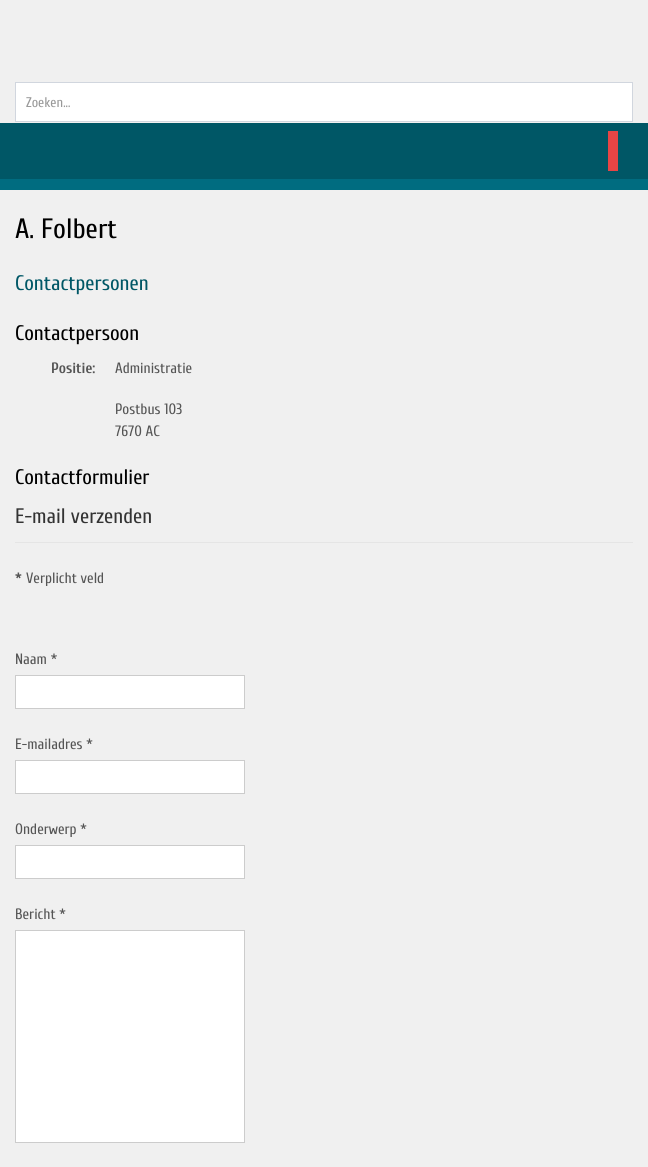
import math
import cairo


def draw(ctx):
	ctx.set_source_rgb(0.941, 0.941, 0.941)
	ctx.paint()
	ctx.set_source_rgb(1, 1, 1)
	ctx.rectangle(15.5, 82.5, 617, 39)
	ctx.fill_preserve()
	ctx.set_source_rgb(0.82, 0.839, 0.871)
	ctx.set_line_width(1)
	ctx.stroke()
	ctx.select_font_face('Cuprum')
	ctx.set_font_size(14)
	ctx.set_source_rgb(0.6, 0.6, 0.6)
	ctx.move_to(26, 107)
	ctx.show_text('Zoeken...')
	ctx.set_source_rgb(0, 0.341, 0.4)
	ctx.rectangle(0, 123, 648, 56)
	ctx.fill()
	ctx.set_source_rgb(0.906, 0.271, 0.271)
	ctx.rectangle(608, 131, 10, 40)
	ctx.fill()
	ctx.set_source_rgb(0, 0.424, 0.502)
	ctx.rectangle(0, 179, 648, 11)
	ctx.fill()
	ctx.set_font_size(28)
	ctx.set_source_rgb(0, 0, 0)
	ctx.move_to(15, 238)
	ctx.show_text('A. Folbert')
	ctx.set_font_size(21)
	ctx.set_source_rgb(0, 0.341, 0.4)
	ctx.move_to(15, 290)
	ctx.show_text('Contactpersonen')
	ctx.set_source_rgb(0, 0, 0)
	ctx.move_to(15, 340)
	ctx.show_text('Contactpersoon')
	ctx.select_font_face('Cuprum', cairo.FONT_SLANT_NORMAL, cairo.FONT_WEIGHT_BOLD)
	ctx.set_font_size(15)
	ctx.set_source_rgb(0.333, 0.333, 0.333)
	ctx.move_to(51, 373)
	ctx.show_text('Positie:')
	ctx.select_font_face('Cuprum')
	for x, y, s in [
		(115, 373, 'Administratie'),
		(115, 414, 'Postbus 103'),
		(115, 436, '7670 AC'),
	]:
		ctx.move_to(x, y)
		ctx.show_text(s)
	ctx.set_font_size(21)
	ctx.set_source_rgb(0, 0, 0)
	ctx.move_to(15, 484)
	ctx.show_text('Contactformulier')
	ctx.set_source_rgb(0.898, 0.898, 0.898)
	ctx.rectangle(15, 542, 618, 1)
	ctx.fill()
	ctx.set_source_rgb(0.2, 0.2, 0.2)
	ctx.move_to(15, 523)
	ctx.show_text('E-mail verzenden')
	ctx.select_font_face('Cuprum', cairo.FONT_SLANT_NORMAL, cairo.FONT_WEIGHT_BOLD)
	ctx.set_font_size(15)
	ctx.set_source_rgb(0.333, 0.333, 0.333)
	ctx.move_to(15, 583)
	ctx.show_text('*')
	ctx.select_font_face('Cuprum')
	ctx.move_to(26, 583)
	ctx.show_text('Verplicht veld')
	ctx.move_to(15, 664)
	ctx.show_text('Naam *')
	ctx.set_source_rgb(1, 1, 1)
	ctx.rectangle(15.5, 675.5, 229, 33)
	ctx.fill_preserve()
	ctx.set_source_rgb(0.8, 0.8, 0.8)
	ctx.stroke()
	ctx.set_source_rgb(0.333, 0.333, 0.333)
	ctx.move_to(15, 749)
	ctx.show_text('E-mailadres *')
	ctx.set_source_rgb(1, 1, 1)
	ctx.rectangle(15.5, 760.5, 229, 33)
	ctx.fill_preserve()
	ctx.set_source_rgb(0.8, 0.8, 0.8)
	ctx.stroke()
	ctx.set_source_rgb(0.333, 0.333, 0.333)
	ctx.move_to(15, 834)
	ctx.show_text('Onderwerp *')
	ctx.set_source_rgb(1, 1, 1)
	ctx.rectangle(15.5, 845.5, 229, 33)
	ctx.fill_preserve()
	ctx.set_source_rgb(0.8, 0.8, 0.8)
	ctx.stroke()
	ctx.set_source_rgb(0.333, 0.333, 0.333)
	ctx.move_to(15, 919)
	ctx.show_text('Bericht *')
	ctx.set_source_rgb(1, 1, 1)
	ctx.rectangle(15.5, 930.5, 229, 212)
	ctx.fill_preserve()
	ctx.set_source_rgb(0.8, 0.8, 0.8)
	ctx.stroke()


surface = cairo.ImageSurface(cairo.FORMAT_RGB24, 648, 1167)
ctx = cairo.Context(surface)
options = cairo.FontOptions()
options.set_hint_metrics(cairo.HINT_METRICS_OFF)
options.set_hint_style(cairo.HINT_STYLE_NONE)
ctx.set_font_options(options)
ctx.set_miter_limit(4)
draw(ctx)
surface.write_to_png('image.png')
